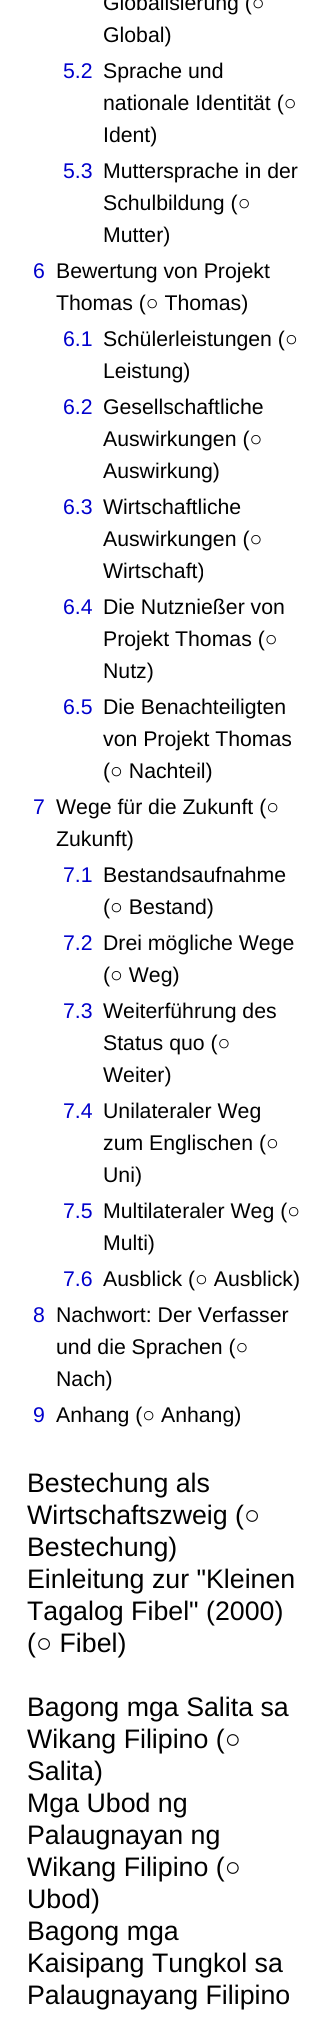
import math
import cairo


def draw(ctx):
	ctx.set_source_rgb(1, 1, 1)
	ctx.paint()
	ctx.select_font_face('Liberation Sans')
	ctx.set_font_size(21.25)
	ctx.set_source_rgb(0, 0, 0)
	ctx.move_to(103, 10)
	ctx.show_text('Globalisierung (○')
	ctx.move_to(103, 42)
	ctx.show_text('Global)')
	ctx.set_source_rgb(0, 0, 0.8)
	ctx.move_to(63, 78)
	ctx.show_text('5.2')
	ctx.set_source_rgb(0, 0, 0)
	for x, y, s in [
		(103, 78, 'Sprache und'),
		(103, 110, 'nationale Identität (○'),
		(103, 142, 'Ident)'),
	]:
		ctx.move_to(x, y)
		ctx.show_text(s)
	ctx.set_source_rgb(0, 0, 0.8)
	ctx.move_to(63, 178)
	ctx.show_text('5.3')
	ctx.set_source_rgb(0, 0, 0)
	for x, y, s in [
		(103, 178, 'Muttersprache in der'),
		(103, 210, 'Schulbildung (○'),
		(103, 242, 'Mutter)'),
	]:
		ctx.move_to(x, y)
		ctx.show_text(s)
	ctx.set_source_rgb(0, 0, 0.8)
	ctx.move_to(33, 278)
	ctx.show_text('6')
	ctx.set_source_rgb(0, 0, 0)
	ctx.move_to(56, 278)
	ctx.show_text('Bewertung von Projekt')
	ctx.move_to(56, 310)
	ctx.show_text('Thomas (○ Thomas)')
	ctx.set_source_rgb(0, 0, 0.8)
	ctx.move_to(63, 346)
	ctx.show_text('6.1')
	ctx.set_source_rgb(0, 0, 0)
	ctx.move_to(103, 346)
	ctx.show_text('Schülerleistungen (○')
	ctx.move_to(103, 378)
	ctx.show_text('Leistung)')
	ctx.set_source_rgb(0, 0, 0.8)
	ctx.move_to(63, 414)
	ctx.show_text('6.2')
	ctx.set_source_rgb(0, 0, 0)
	for x, y, s in [
		(103, 414, 'Gesellschaftliche'),
		(103, 446, 'Auswirkungen (○'),
		(103, 478, 'Auswirkung)'),
	]:
		ctx.move_to(x, y)
		ctx.show_text(s)
	ctx.set_source_rgb(0, 0, 0.8)
	ctx.move_to(63, 514)
	ctx.show_text('6.3')
	ctx.set_source_rgb(0, 0, 0)
	for x, y, s in [
		(103, 514, 'Wirtschaftliche'),
		(103, 546, 'Auswirkungen (○'),
		(103, 578, 'Wirtschaft)'),
	]:
		ctx.move_to(x, y)
		ctx.show_text(s)
	ctx.set_source_rgb(0, 0, 0.8)
	ctx.move_to(63, 614)
	ctx.show_text('6.4')
	ctx.set_source_rgb(0, 0, 0)
	for x, y, s in [
		(103, 614, 'Die Nutznießer von'),
		(103, 646, 'Projekt Thomas (○'),
		(103, 678, 'Nutz)'),
	]:
		ctx.move_to(x, y)
		ctx.show_text(s)
	ctx.set_source_rgb(0, 0, 0.8)
	ctx.move_to(63, 714)
	ctx.show_text('6.5')
	ctx.set_source_rgb(0, 0, 0)
	for x, y, s in [
		(103, 714, 'Die Benachteiligten'),
		(103, 746, 'von Projekt Thomas'),
		(103, 778, '(○ Nachteil)'),
	]:
		ctx.move_to(x, y)
		ctx.show_text(s)
	ctx.set_source_rgb(0, 0, 0.8)
	ctx.move_to(33, 814)
	ctx.show_text('7')
	ctx.set_source_rgb(0, 0, 0)
	ctx.move_to(56, 814)
	ctx.show_text('Wege für die Zukunft (○')
	ctx.move_to(56, 846)
	ctx.show_text('Zukunft)')
	ctx.set_source_rgb(0, 0, 0.8)
	ctx.move_to(63, 882)
	ctx.show_text('7.1')
	ctx.set_source_rgb(0, 0, 0)
	ctx.move_to(103, 882)
	ctx.show_text('Bestandsaufnahme')
	ctx.move_to(103, 914)
	ctx.show_text('(○ Bestand)')
	ctx.set_source_rgb(0, 0, 0.8)
	ctx.move_to(63, 950)
	ctx.show_text('7.2')
	ctx.set_source_rgb(0, 0, 0)
	ctx.move_to(103, 950)
	ctx.show_text('Drei mögliche Wege')
	ctx.move_to(103, 982)
	ctx.show_text('(○ Weg)')
	ctx.set_source_rgb(0, 0, 0.8)
	ctx.move_to(63, 1018)
	ctx.show_text('7.3')
	ctx.set_source_rgb(0, 0, 0)
	for x, y, s in [
		(103, 1018, 'Weiterführung des'),
		(103, 1050, 'Status quo (○'),
		(103, 1082, 'Weiter)'),
	]:
		ctx.move_to(x, y)
		ctx.show_text(s)
	ctx.set_source_rgb(0, 0, 0.8)
	ctx.move_to(63, 1118)
	ctx.show_text('7.4')
	ctx.set_source_rgb(0, 0, 0)
	for x, y, s in [
		(103, 1118, 'Unilateraler Weg'),
		(103, 1150, 'zum Englischen (○'),
		(103, 1182, 'Uni)'),
	]:
		ctx.move_to(x, y)
		ctx.show_text(s)
	ctx.set_source_rgb(0, 0, 0.8)
	ctx.move_to(63, 1218)
	ctx.show_text('7.5')
	ctx.set_source_rgb(0, 0, 0)
	ctx.move_to(103, 1218)
	ctx.show_text('Multilateraler Weg (○')
	ctx.move_to(103, 1250)
	ctx.show_text('Multi)')
	ctx.set_source_rgb(0, 0, 0.8)
	ctx.move_to(63, 1286)
	ctx.show_text('7.6')
	ctx.set_source_rgb(0, 0, 0)
	ctx.move_to(103, 1286)
	ctx.show_text('Ausblick (○ Ausblick)')
	ctx.set_source_rgb(0, 0, 0.8)
	ctx.move_to(33, 1322)
	ctx.show_text('8')
	ctx.set_source_rgb(0, 0, 0)
	for x, y, s in [
		(56, 1322, 'Nachwort: Der Verfasser'),
		(56, 1354, 'und die Sprachen (○'),
		(56, 1386, 'Nach)'),
	]:
		ctx.move_to(x, y)
		ctx.show_text(s)
	ctx.set_source_rgb(0, 0, 0.8)
	ctx.move_to(33, 1422)
	ctx.show_text('9')
	ctx.set_source_rgb(0, 0, 0)
	ctx.move_to(56, 1422)
	ctx.show_text('Anhang (○ Anhang)')
	ctx.set_font_size(26.75)
	for x, y, s in [
		(27, 1492, 'Bestechung als'),
		(27, 1524, 'Wirtschaftszweig (○'),
		(27, 1556, 'Bestechung)'),
		(27, 1588, 'Einleitung zur "Kleinen'),
		(27, 1620, 'Tagalog Fibel" (2000)'),
		(27, 1652, '(○ Fibel)'),
		(27, 1716, 'Bagong mga Salita sa'),
		(27, 1748, 'Wikang Filipino (○'),
		(27, 1780, 'Salita)'),
		(27, 1812, 'Mga Ubod ng'),
		(27, 1844, 'Palaugnayan ng'),
		(27, 1876, 'Wikang Filipino (○'),
		(27, 1908, 'Ubod)'),
		(27, 1940, 'Bagong mga'),
		(27, 1972, 'Kaisipang Tungkol sa'),
		(27, 2004, 'Palaugnayang Filipino'),
	]:
		ctx.move_to(x, y)
		ctx.show_text(s)


surface = cairo.ImageSurface(cairo.FORMAT_RGB24, 328, 2017)
ctx = cairo.Context(surface)
options = cairo.FontOptions()
options.set_hint_metrics(cairo.HINT_METRICS_OFF)
options.set_hint_style(cairo.HINT_STYLE_NONE)
ctx.set_font_options(options)
ctx.set_miter_limit(4)
draw(ctx)
surface.write_to_png('image.png')
